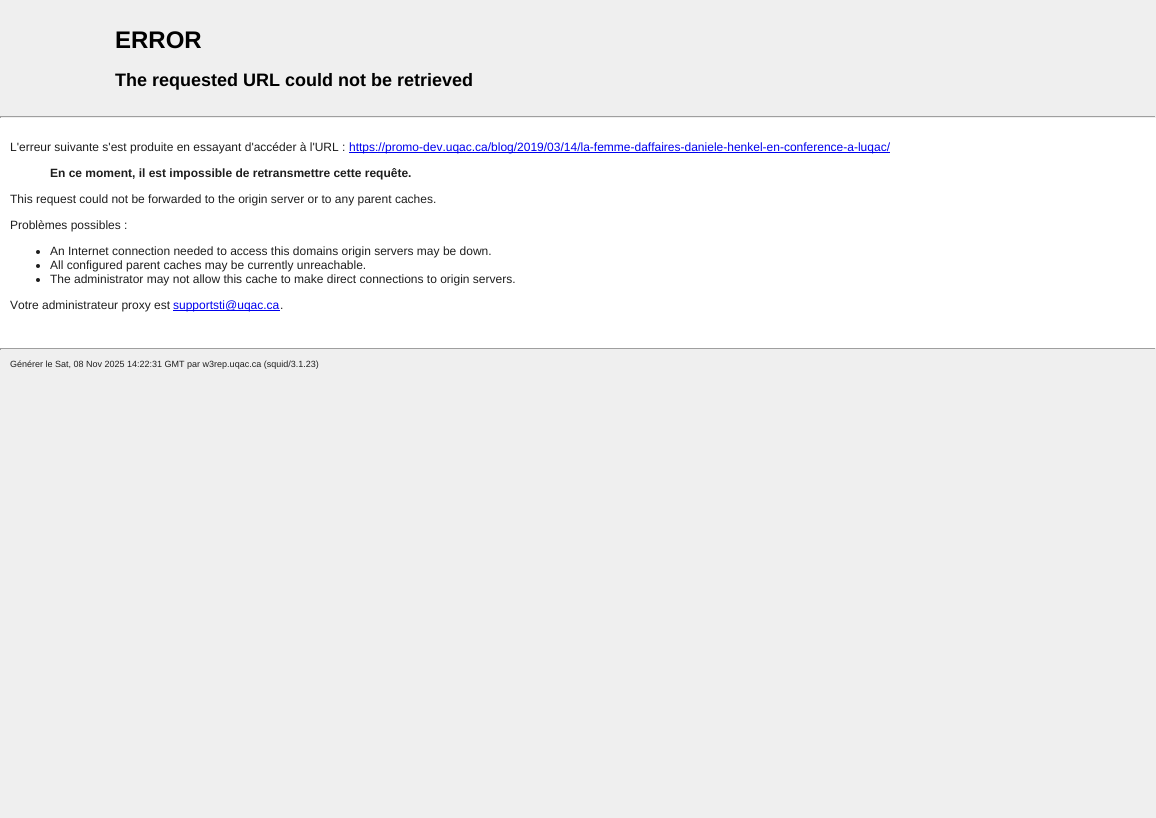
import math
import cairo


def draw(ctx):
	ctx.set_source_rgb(0.937, 0.937, 0.937)
	ctx.paint()
	ctx.select_font_face('Liberation Sans', cairo.FONT_SLANT_NORMAL, cairo.FONT_WEIGHT_BOLD)
	ctx.set_font_size(24)
	ctx.set_source_rgb(0, 0, 0)
	ctx.move_to(115, 48)
	ctx.show_text('ERROR')
	ctx.set_font_size(18)
	ctx.move_to(115, 86)
	ctx.show_text('The requested URL could not be retrieved')
	ctx.set_source_rgb(0.624, 0.624, 0.624)
	ctx.rectangle(0, 116, 1156, 1)
	ctx.fill()
	ctx.set_source_rgb(0.933, 0.933, 0.933)
	ctx.rectangle(1155, 116, 1, 2)
	ctx.fill()
	ctx.set_source_rgb(0.624, 0.624, 0.624)
	ctx.rectangle(0, 116, 1, 2)
	ctx.fill()
	ctx.set_source_rgb(1, 1, 1)
	ctx.rectangle(0, 118, 1156, 230)
	ctx.fill()
	ctx.select_font_face('Liberation Sans')
	ctx.set_font_size(12)
	ctx.set_source_rgb(0.118, 0.118, 0.118)
	ctx.move_to(10, 151)
	ctx.show_text('L\'erreur suivante s\'est produite en essayant d\'accéder à l\'URL :')
	ctx.set_source_rgb(0, 0, 0.933)
	ctx.rectangle(349, 152, 541, 1)
	ctx.fill()
	ctx.move_to(349, 151)
	ctx.show_text('https://promo-dev.uqac.ca/blog/2019/03/14/la-femme-daffaires-daniele-henkel-en-conference-a-luqac/')
	ctx.select_font_face('Liberation Sans', cairo.FONT_SLANT_NORMAL, cairo.FONT_WEIGHT_BOLD)
	ctx.set_source_rgb(0.118, 0.118, 0.118)
	ctx.move_to(50, 177)
	ctx.show_text('En ce moment, il est impossible de retransmettre cette requête.')
	ctx.select_font_face('Liberation Sans')
	ctx.move_to(10, 203)
	ctx.show_text('This request could not be forwarded to the origin server or to any parent caches.')
	ctx.move_to(10, 229)
	ctx.show_text('Problèmes possibles :')
	ctx.new_path()
	ctx.arc(38, 252, 2, 0, 2 * math.pi)
	ctx.fill()
	ctx.move_to(50, 255)
	ctx.show_text('An Internet connection needed to access this domains origin servers may be down.')
	ctx.new_path()
	ctx.arc(38, 266, 2, 0, 2 * math.pi)
	ctx.fill()
	ctx.move_to(50, 269)
	ctx.show_text('All configured parent caches may be currently unreachable.')
	ctx.new_path()
	ctx.arc(38, 280, 2, 0, 2 * math.pi)
	ctx.fill()
	ctx.move_to(50, 283)
	ctx.show_text('The administrator may not allow this cache to make direct connections to origin servers.')
	ctx.move_to(10, 309)
	ctx.show_text('Votre administrateur proxy est')
	ctx.set_source_rgb(0, 0, 0.933)
	ctx.rectangle(173, 310, 107, 1)
	ctx.fill()
	ctx.move_to(173, 309)
	ctx.show_text('supportsti@uqac.ca')
	ctx.set_source_rgb(0.118, 0.118, 0.118)
	ctx.move_to(280, 309)
	ctx.show_text('.')
	ctx.set_source_rgb(0.624, 0.624, 0.624)
	ctx.rectangle(0, 348, 1156, 1)
	ctx.fill()
	ctx.set_source_rgb(0.933, 0.933, 0.933)
	ctx.rectangle(1155, 348, 1, 2)
	ctx.fill()
	ctx.set_source_rgb(0.624, 0.624, 0.624)
	ctx.rectangle(0, 348, 1, 2)
	ctx.fill()
	ctx.set_font_size(9)
	ctx.set_source_rgb(0.118, 0.118, 0.118)
	ctx.move_to(10, 367)
	ctx.show_text('Générer le Sat, 08 Nov 2025 14:22:31 GMT par w3rep.uqac.ca (squid/3.1.23)')


surface = cairo.ImageSurface(cairo.FORMAT_RGB24, 1156, 818)
ctx = cairo.Context(surface)
options = cairo.FontOptions()
options.set_hint_metrics(cairo.HINT_METRICS_OFF)
options.set_hint_style(cairo.HINT_STYLE_NONE)
ctx.set_font_options(options)
ctx.set_miter_limit(4)
draw(ctx)
surface.write_to_png('image.png')
